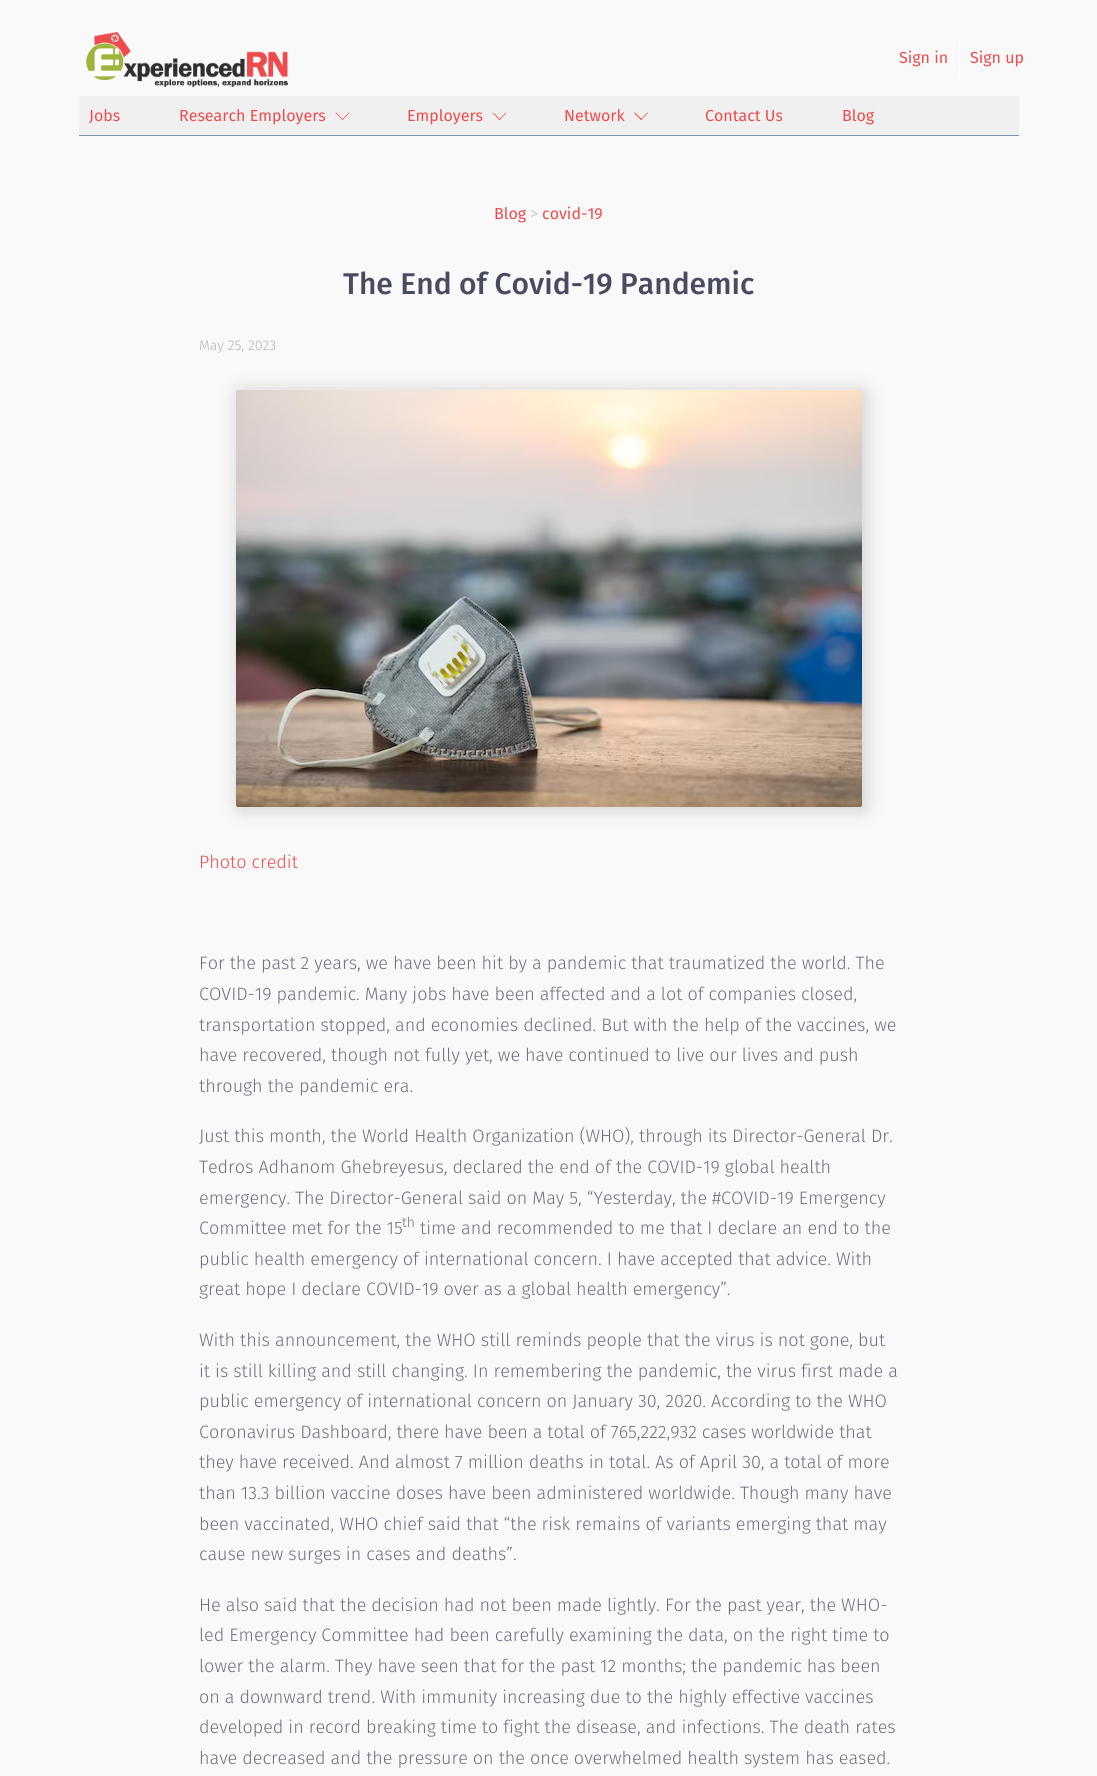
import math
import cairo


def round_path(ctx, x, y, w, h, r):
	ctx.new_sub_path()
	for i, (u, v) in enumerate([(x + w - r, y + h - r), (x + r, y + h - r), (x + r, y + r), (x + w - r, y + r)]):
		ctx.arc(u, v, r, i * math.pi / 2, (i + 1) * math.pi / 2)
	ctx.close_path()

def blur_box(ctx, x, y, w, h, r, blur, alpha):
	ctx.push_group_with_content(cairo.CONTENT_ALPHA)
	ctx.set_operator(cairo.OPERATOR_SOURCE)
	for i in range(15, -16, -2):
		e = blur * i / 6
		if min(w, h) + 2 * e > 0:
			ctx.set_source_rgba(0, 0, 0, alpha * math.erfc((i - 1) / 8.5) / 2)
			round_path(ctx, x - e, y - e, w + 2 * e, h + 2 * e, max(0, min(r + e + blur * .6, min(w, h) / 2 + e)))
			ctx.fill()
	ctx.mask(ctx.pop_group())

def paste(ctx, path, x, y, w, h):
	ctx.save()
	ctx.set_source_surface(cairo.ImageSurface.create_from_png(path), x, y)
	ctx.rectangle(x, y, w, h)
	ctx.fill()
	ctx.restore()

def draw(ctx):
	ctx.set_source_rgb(0.973, 0.973, 0.973)
	ctx.paint()
	paste(ctx, 'media/1.png', 86, 32, 202, 56)
	ctx.set_source_rgb(1, 1, 1)
	ctx.rectangle(959, 38, 1, 40)
	ctx.fill()
	ctx.select_font_face('Fira Sans')
	ctx.set_font_size(16)
	ctx.set_source_rgb(0.937, 0.294, 0.298)
	ctx.move_to(899, 63)
	ctx.show_text('Sign in')
	ctx.move_to(970, 63)
	ctx.show_text('Sign up')
	ctx.set_source_rgb(0.941, 0.941, 0.941)
	ctx.rectangle(79, 96, 940, 39)
	ctx.fill()
	ctx.set_source_rgb(0.49, 0.565, 0.698)
	ctx.rectangle(79, 135, 940, 1)
	ctx.fill()
	ctx.set_source_rgb(0.937, 0.294, 0.298)
	ctx.move_to(89, 121)
	ctx.show_text('Jobs')
	ctx.move_to(179, 121)
	ctx.show_text('Research Employers')
	ctx.new_path()
	ctx.move_to(349.5, 113)
	ctx.line_to(342.5, 120)
	ctx.line_to(342, 119.5)
	ctx.line_to(349, 112.5)
	ctx.close_path()
	ctx.fill()
	ctx.new_path()
	ctx.move_to(343, 119.5)
	ctx.line_to(342.5, 120)
	ctx.line_to(335.5, 113)
	ctx.line_to(336, 112.5)
	ctx.close_path()
	ctx.fill()
	ctx.move_to(407, 121)
	ctx.show_text('Employers')
	ctx.new_path()
	ctx.move_to(506.5, 113)
	ctx.line_to(499.5, 120)
	ctx.line_to(499, 119.5)
	ctx.line_to(506, 112.5)
	ctx.close_path()
	ctx.fill()
	ctx.new_path()
	ctx.move_to(500.5, 119.5)
	ctx.line_to(499.5, 120)
	ctx.line_to(492.5, 113)
	ctx.line_to(493, 112.5)
	ctx.close_path()
	ctx.fill()
	ctx.move_to(564, 121)
	ctx.show_text('Network')
	ctx.new_path()
	ctx.move_to(648, 113)
	ctx.line_to(641, 120)
	ctx.line_to(640.5, 119.5)
	ctx.line_to(647.5, 112.5)
	ctx.close_path()
	ctx.fill()
	ctx.new_path()
	ctx.move_to(642, 119.5)
	ctx.line_to(641, 120)
	ctx.line_to(634, 113)
	ctx.line_to(635, 112.5)
	ctx.close_path()
	ctx.fill()
	for x, y, s in [
		(705, 121, 'Contact Us'),
		(842, 121, 'Blog'),
		(494, 219, 'Blog'),
	]:
		ctx.move_to(x, y)
		ctx.show_text(s)
	ctx.set_source_rgb(0.8, 0.8, 0.8)
	ctx.move_to(530, 219)
	ctx.show_text('>')
	ctx.set_source_rgb(0.937, 0.294, 0.298)
	ctx.move_to(542, 219)
	ctx.show_text('covid-19')
	ctx.select_font_face('Fira Sans Medium')
	ctx.set_font_size(30)
	ctx.set_source_rgb(0.286, 0.294, 0.376)
	ctx.move_to(343, 294)
	ctx.show_text('The End of Covid-19 Pandemic')
	ctx.select_font_face('Fira Sans Light')
	ctx.set_font_size(14)
	ctx.set_source_rgb(0.702, 0.702, 0.702)
	ctx.move_to(199, 350)
	ctx.show_text('May 25, 2023')
	ctx.set_source_rgb(0, 0, 0)
	blur_box(ctx, 239, 392, 626, 417, 2, 10, 0.18)
	paste(ctx, 'media/2.png', 236, 390, 626, 417)
	ctx.set_font_size(18)
	ctx.set_source_rgb(0.937, 0.294, 0.298)
	ctx.move_to(199, 868)
	ctx.show_text('Photo credit')
	ctx.set_source_rgb(0.427, 0.435, 0.502)
	for x, y, s in [
		(199, 969, 'For the past 2 years, we have been hit by a pandemic that traumatized the world. The'),
		(199, 1000, 'COVID-19 pandemic. Many jobs have been affected and a lot of companies closed,'),
		(199, 1031, 'transportation stopped, and economies declined. But with the help of the vaccines, we'),
		(199, 1061, 'have recovered, though not fully yet, we have continued to live our lives and push'),
		(199, 1092, 'through the pandemic era.'),
		(199, 1142, 'Just this month, the World Health Organization (WHO), through its Director-General Dr.'),
		(199, 1173, 'Tedros Adhanom Ghebreyesus, declared the end of the COVID-19 global health'),
		(199, 1204, 'emergency. The Director-General said on May 5, “Yesterday, the #COVID-19 Emergency'),
		(199, 1234, 'Committee met for the 15'),
	]:
		ctx.move_to(x, y)
		ctx.show_text(s)
	ctx.set_font_size(14)
	ctx.move_to(402, 1227)
	ctx.show_text('th')
	ctx.set_font_size(18)
	for x, y, s in [
		(420, 1234, 'time and recommended to me that I declare an end to the'),
		(199, 1265, 'public health emergency of international concern. I have accepted that advice. With'),
		(199, 1295, 'great hope I declare COVID-19 over as a global health emergency”.'),
		(199, 1346, 'With this announcement, the WHO still reminds people that the virus is not gone, but'),
		(199, 1377, 'it is still killing and still changing. In remembering the pandemic, the virus first made a'),
		(199, 1407, 'public emergency of international concern on January 30, 2020. According to the WHO'),
		(199, 1438, 'Coronavirus Dashboard, there have been a total of 765,222,932 cases worldwide that'),
		(199, 1468, 'they have received. And almost 7 million deaths in total. As of April 30, a total of more'),
		(199, 1499, 'than 13.3 billion vaccine doses have been administered worldwide. Though many have'),
		(199, 1530, 'been vaccinated, WHO chief said that “the risk remains of variants emerging that may'),
		(199, 1560, 'cause new surges in cases and deaths”.'),
		(199, 1611, 'He also said that the decision had not been made lightly. For the past year, the WHO-'),
		(199, 1641, 'led Emergency Committee had been carefully examining the data, on the right time to'),
		(199, 1672, 'lower the alarm. They have seen that for the past 12 months; the pandemic has been'),
		(199, 1703, 'on a downward trend. With immunity increasing due to the highly effective vaccines'),
		(199, 1733, 'developed in record breaking time to fight the disease, and infections. The death rates'),
		(199, 1764, 'have decreased and the pressure on the once overwhelmed health system has eased.'),
	]:
		ctx.move_to(x, y)
		ctx.show_text(s)


surface = cairo.ImageSurface(cairo.FORMAT_RGB24, 1097, 1776)
ctx = cairo.Context(surface)
options = cairo.FontOptions()
options.set_hint_metrics(cairo.HINT_METRICS_OFF)
options.set_hint_style(cairo.HINT_STYLE_NONE)
ctx.set_font_options(options)
ctx.set_miter_limit(4)
draw(ctx)
surface.write_to_png('image.png')
